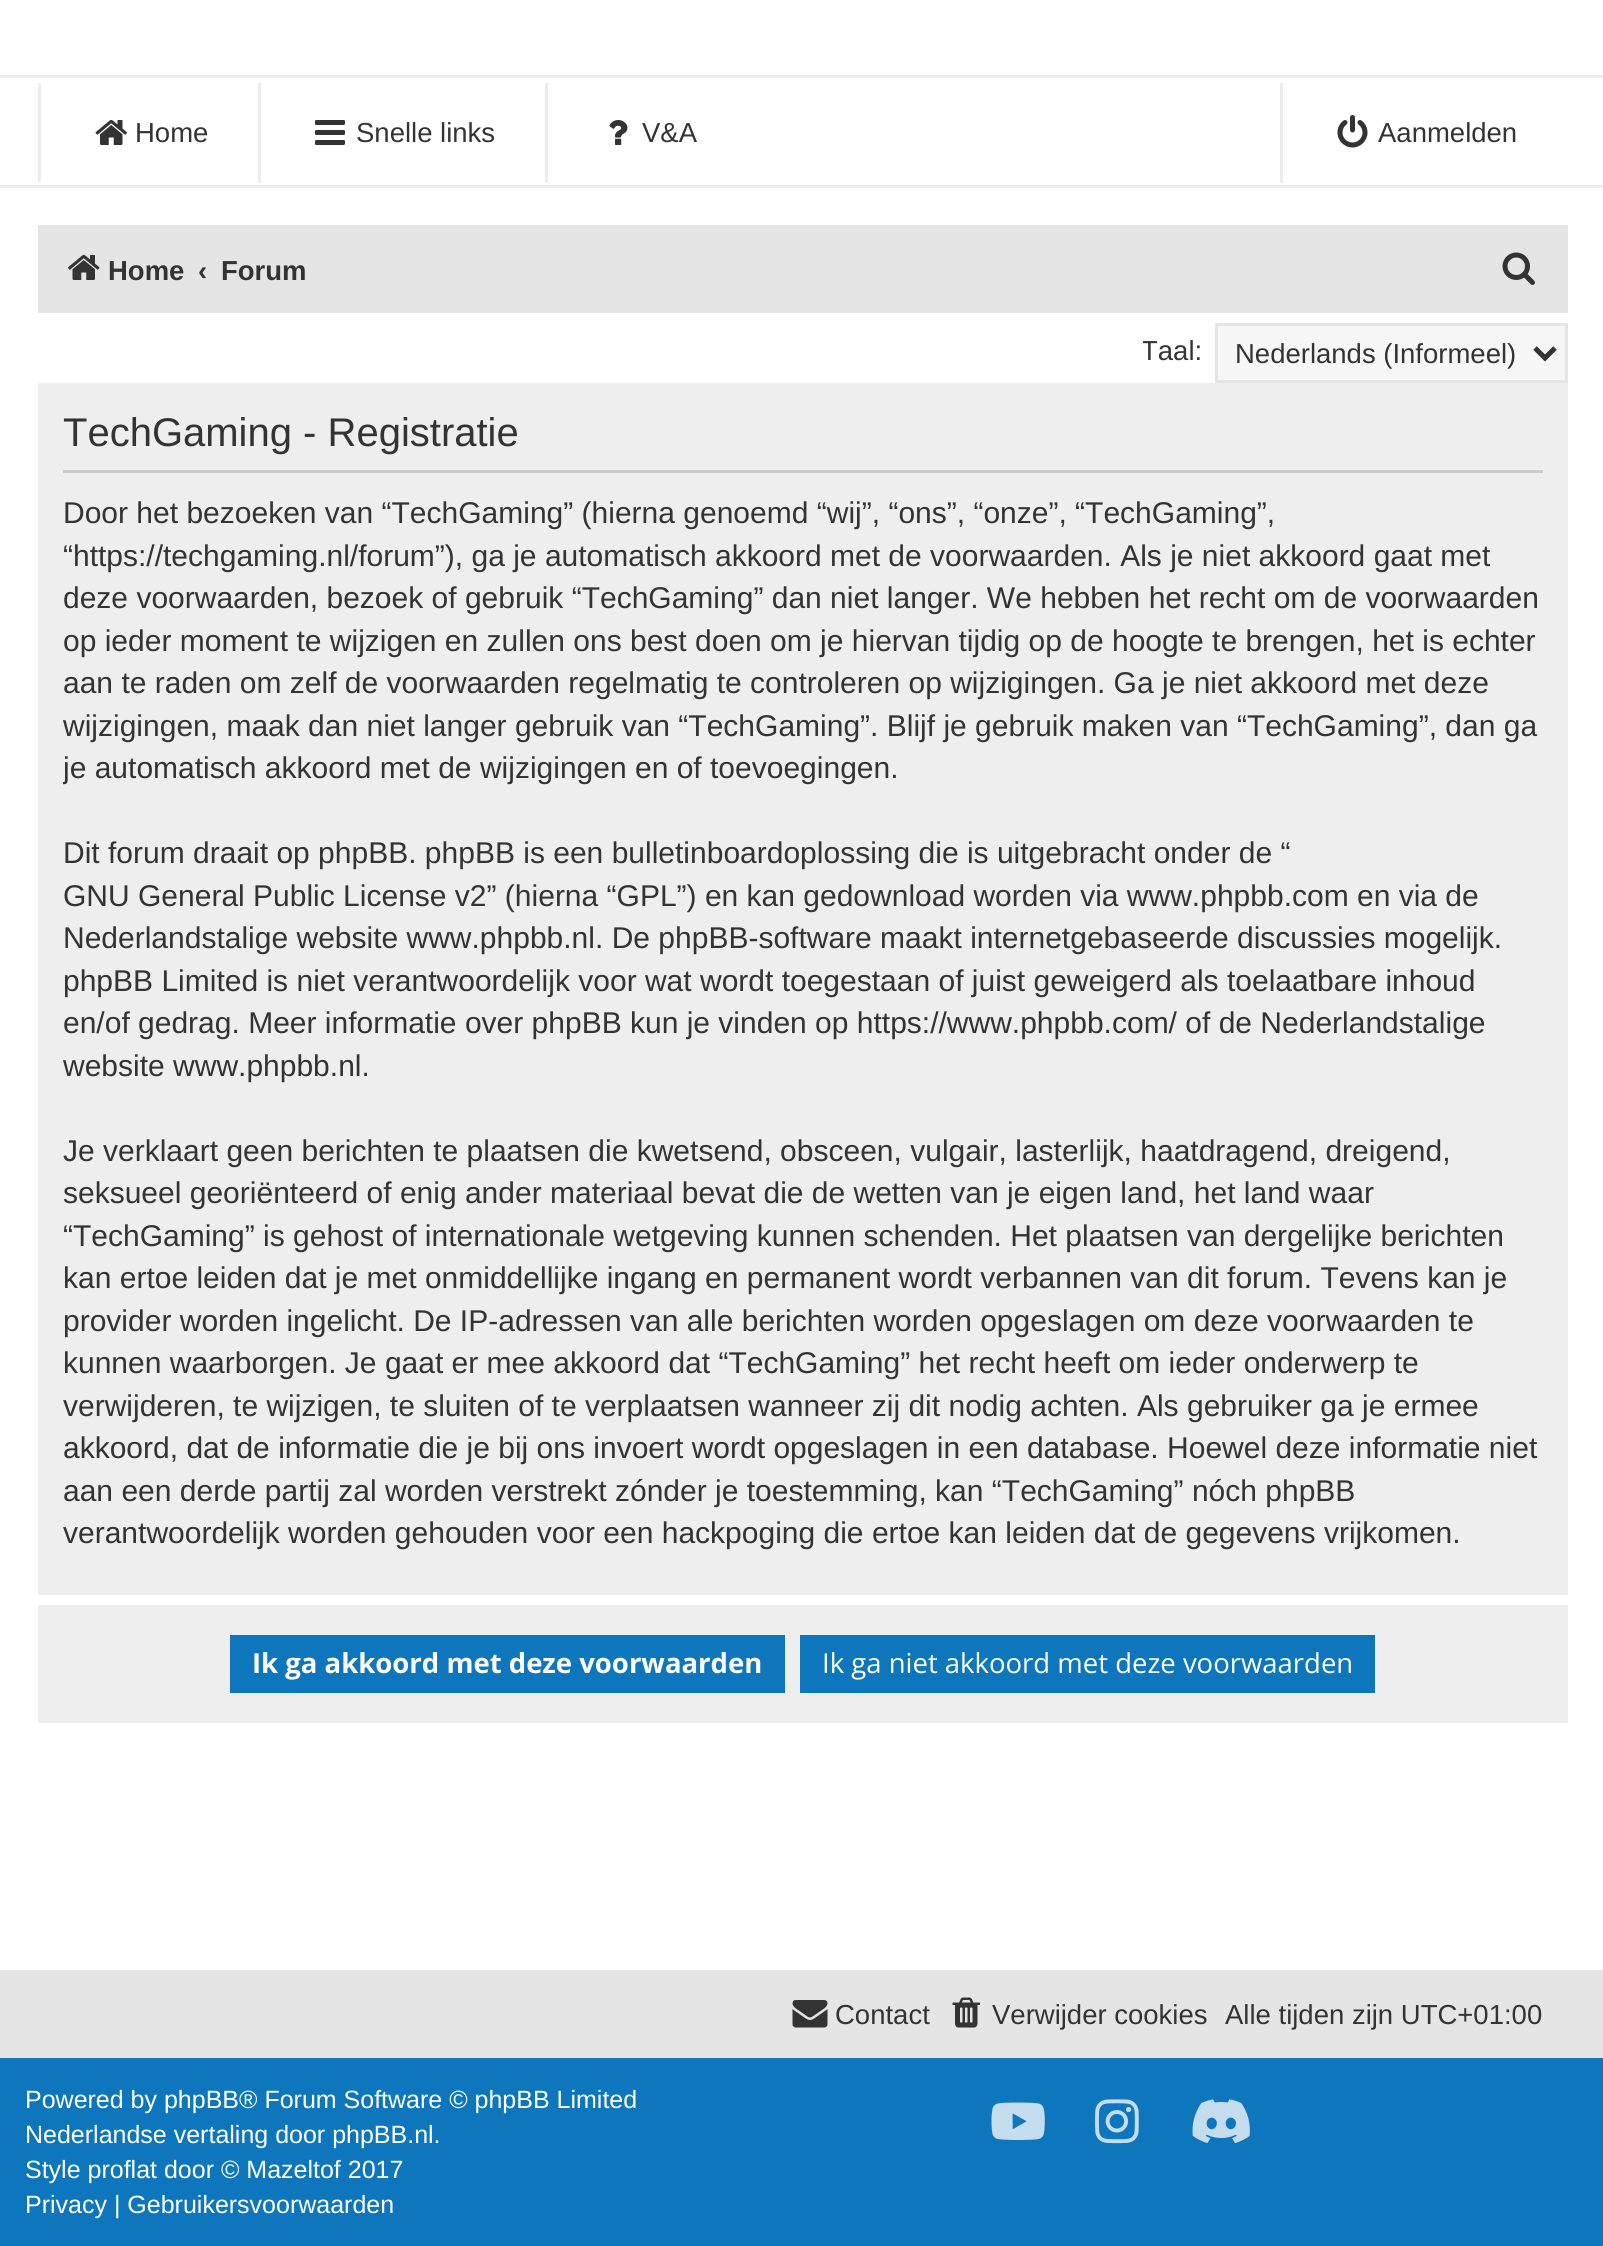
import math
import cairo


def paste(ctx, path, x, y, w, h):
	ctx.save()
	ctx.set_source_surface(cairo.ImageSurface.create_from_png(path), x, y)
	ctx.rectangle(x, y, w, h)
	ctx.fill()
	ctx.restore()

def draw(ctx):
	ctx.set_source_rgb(1, 1, 1)
	ctx.paint()
	ctx.set_source_rgb(0.929, 0.929, 0.929)
	ctx.rectangle(0, 75, 1603, 3)
	ctx.fill()
	ctx.rectangle(38, 83, 3, 100)
	ctx.fill()
	paste(ctx, 'media/1.png', 95, 119, 32, 26)
	ctx.select_font_face('Liberation Sans')
	ctx.set_font_size(27.5)
	ctx.set_source_rgb(0.2, 0.2, 0.2)
	ctx.move_to(135, 142)
	ctx.show_text('Home')
	ctx.set_source_rgb(0.929, 0.929, 0.929)
	ctx.rectangle(258, 83, 3, 100)
	ctx.fill()
	paste(ctx, 'media/2.png', 315, 120, 30, 25)
	ctx.set_source_rgb(0.2, 0.2, 0.2)
	ctx.move_to(356, 142)
	ctx.show_text('Snelle links')
	ctx.set_source_rgb(0.929, 0.929, 0.929)
	ctx.rectangle(545, 83, 3, 100)
	ctx.fill()
	paste(ctx, 'media/3.png', 609, 120, 19, 25)
	ctx.set_source_rgb(0.2, 0.2, 0.2)
	ctx.move_to(642, 142)
	ctx.show_text('V&A')
	ctx.set_source_rgb(0.929, 0.929, 0.929)
	ctx.rectangle(1280, 83, 3, 100)
	ctx.fill()
	paste(ctx, 'media/4.png', 1337, 115, 31, 33)
	ctx.set_source_rgb(0.2, 0.2, 0.2)
	ctx.move_to(1378, 142)
	ctx.show_text('Aanmelden')
	ctx.set_source_rgb(0.929, 0.929, 0.929)
	ctx.rectangle(0, 185, 1603, 3)
	ctx.fill()
	ctx.set_source_rgb(0.898, 0.898, 0.898)
	ctx.rectangle(38, 225, 1530, 88)
	ctx.fill()
	paste(ctx, 'media/5.png', 68, 254, 32, 26)
	ctx.select_font_face('Liberation Sans', cairo.FONT_SLANT_NORMAL, cairo.FONT_WEIGHT_BOLD)
	ctx.set_source_rgb(0.2, 0.2, 0.2)
	for x, y, s in [
		(108, 280, 'Home'),
		(198, 280, '‹'),
		(221, 280, 'Forum'),
	]:
		ctx.move_to(x, y)
		ctx.show_text(s)
	paste(ctx, 'media/6.png', 1502, 252, 33, 33)
	ctx.save()
	ctx.rectangle(1143, 323, 425, 60)
	ctx.clip()
	ctx.select_font_face('Liberation Sans')
	ctx.move_to(1141, 360)
	ctx.show_text('Taal:')
	ctx.restore()
	ctx.set_source_rgb(0.961, 0.961, 0.961)
	ctx.rectangle(1216.5, 324.5, 350, 57)
	ctx.fill_preserve()
	ctx.set_source_rgb(0.898, 0.898, 0.898)
	ctx.set_line_width(3)
	ctx.stroke()
	ctx.new_path()
	ctx.move_to(1535, 348)
	ctx.line_to(1545, 358)
	ctx.line_to(1555, 348)
	ctx.set_source_rgb(0.2, 0.2, 0.2)
	ctx.set_line_width(5)
	ctx.stroke()
	ctx.select_font_face('Liberation Sans')
	ctx.move_to(1235, 363)
	ctx.show_text('Nederlands (Informeel)')
	ctx.set_source_rgb(0.933, 0.933, 0.933)
	ctx.rectangle(38, 383, 1530, 1212)
	ctx.fill()
	ctx.set_source_rgb(0.8, 0.8, 0.8)
	ctx.rectangle(63, 470, 1480, 3)
	ctx.fill()
	ctx.set_font_size(40)
	ctx.set_source_rgb(0.2, 0.2, 0.2)
	ctx.move_to(63, 446)
	ctx.show_text('TechGaming - Registratie')
	ctx.set_font_size(30)
	for x, y, s in [
		(63, 523, 'Door het bezoeken van “TechGaming” (hierna genoemd “wij”, “ons”, “onze”, “TechGaming”,'),
		(63, 566, '“https://techgaming.nl/forum”), ga je automatisch akkoord met de voorwaarden. Als je niet akkoord gaat met'),
		(63, 608, 'deze voorwaarden, bezoek of gebruik “TechGaming” dan niet langer. We hebben het recht om de voorwaarden'),
		(63, 651, 'op ieder moment te wijzigen en zullen ons best doen om je hiervan tijdig op de hoogte te brengen, het is echter'),
		(63, 693, 'aan te raden om zelf de voorwaarden regelmatig te controleren op wijzigingen. Ga je niet akkoord met deze'),
		(63, 736, 'wijzigingen, maak dan niet langer gebruik van “TechGaming”. Blijf je gebruik maken van “TechGaming”, dan ga'),
	]:
		ctx.move_to(x, y)
		ctx.show_text(s)
	ctx.save()
	ctx.rectangle(63, 395, 1480, 1188)
	ctx.clip()
	ctx.move_to(63, 778)
	ctx.show_text('je automatisch akkoord met de wijzigingen en of toevoegingen.')
	ctx.restore()
	for x, y, s in [
		(63, 863, 'Dit forum draait op phpBB. phpBB is een bulletinboardoplossing die is uitgebracht onder de “'),
		(63, 906, 'GNU General Public License v2” (hierna “GPL”) en kan gedownload worden via www.phpbb.com en via de'),
		(63, 948, 'Nederlandstalige website www.phpbb.nl. De phpBB-software maakt internetgebaseerde discussies mogelijk.'),
		(63, 991, 'phpBB Limited is niet verantwoordelijk voor wat wordt toegestaan of juist geweigerd als toelaatbare inhoud'),
		(63, 1033, 'en/of gedrag. Meer informatie over phpBB kun je vinden op https://www.phpbb.com/ of de Nederlandstalige'),
		(63, 1076, 'website www.phpbb.nl.'),
		(63, 1161, 'Je verklaart geen berichten te plaatsen die kwetsend, obsceen, vulgair, lasterlijk, haatdragend, dreigend,'),
		(63, 1203, 'seksueel georiënteerd of enig ander materiaal bevat die de wetten van je eigen land, het land waar'),
		(63, 1246, '“TechGaming” is gehost of internationale wetgeving kunnen schenden. Het plaatsen van dergelijke berichten'),
		(63, 1288, 'kan ertoe leiden dat je met onmiddellijke ingang en permanent wordt verbannen van dit forum. Tevens kan je'),
		(63, 1331, 'provider worden ingelicht. De IP-adressen van alle berichten worden opgeslagen om deze voorwaarden te'),
		(63, 1373, 'kunnen waarborgen. Je gaat er mee akkoord dat “TechGaming” het recht heeft om ieder onderwerp te'),
		(63, 1416, 'verwijderen, te wijzigen, te sluiten of te verplaatsen wanneer zij dit nodig achten. Als gebruiker ga je ermee'),
		(63, 1458, 'akkoord, dat de informatie die je bij ons invoert wordt opgeslagen in een database. Hoewel deze informatie niet'),
		(63, 1501, 'aan een derde partij zal worden verstrekt zónder je toestemming, kan “TechGaming” nóch phpBB'),
		(63, 1543, 'verantwoordelijk worden gehouden voor een hackpoging die ertoe kan leiden dat de gegevens vrijkomen.'),
	]:
		ctx.move_to(x, y)
		ctx.show_text(s)
	ctx.set_source_rgb(0.933, 0.933, 0.933)
	ctx.rectangle(38, 1605, 1530, 118)
	ctx.fill()
	ctx.set_source_rgb(0.055, 0.463, 0.737)
	ctx.rectangle(230, 1635, 555, 58)
	ctx.fill()
	ctx.select_font_face('Open Sans', cairo.FONT_SLANT_NORMAL, cairo.FONT_WEIGHT_BOLD)
	ctx.set_font_size(27.5)
	ctx.set_source_rgb(1, 1, 1)
	ctx.move_to(252, 1673)
	ctx.show_text('Ik ga akkoord met deze voorwaarden')
	ctx.set_source_rgb(0.055, 0.463, 0.737)
	ctx.rectangle(800, 1635, 575, 58)
	ctx.fill()
	ctx.select_font_face('Open Sans')
	ctx.set_source_rgb(1, 1, 1)
	ctx.move_to(822, 1673)
	ctx.show_text('Ik ga niet akkoord met deze voorwaarden')
	ctx.set_source_rgb(0.898, 0.898, 0.898)
	ctx.rectangle(0, 1970, 1603, 88)
	ctx.fill()
	paste(ctx, 'media/7.png', 792, 2000, 36, 28)
	ctx.select_font_face('Liberation Sans')
	ctx.set_source_rgb(0.2, 0.2, 0.2)
	ctx.move_to(835, 2024)
	ctx.show_text('Contact')
	paste(ctx, 'media/8.png', 952, 1997, 28, 31)
	ctx.move_to(992, 2024)
	ctx.show_text('Verwijder cookies')
	ctx.move_to(1225, 2024)
	ctx.show_text('Alle tijden zijn UTC+01:00')
	ctx.set_source_rgb(0.055, 0.463, 0.737)
	ctx.rectangle(0, 2058, 1603, 188)
	ctx.fill()
	ctx.set_font_size(25)
	ctx.set_source_rgb(1, 1, 1)
	for x, y, s in [
		(25, 2108, 'Powered by phpBB® Forum Software © phpBB Limited'),
		(25, 2143, 'Nederlandse vertaling door phpBB.nl.'),
		(25, 2178, 'Style proflat door © Mazeltof 2017'),
		(25, 2213, 'Privacy | Gebruikersvoorwaarden'),
	]:
		ctx.move_to(x, y)
		ctx.show_text(s)
	paste(ctx, 'media/9.png', 991, 2102, 54, 38)
	paste(ctx, 'media/10.png', 1095, 2099, 44, 45)
	paste(ctx, 'media/11.png', 1192, 2099, 58, 45)


surface = cairo.ImageSurface(cairo.FORMAT_RGB24, 1603, 2246)
ctx = cairo.Context(surface)
options = cairo.FontOptions()
options.set_hint_metrics(cairo.HINT_METRICS_OFF)
options.set_hint_style(cairo.HINT_STYLE_NONE)
ctx.set_font_options(options)
ctx.set_miter_limit(4)
draw(ctx)
surface.write_to_png('image.png')
